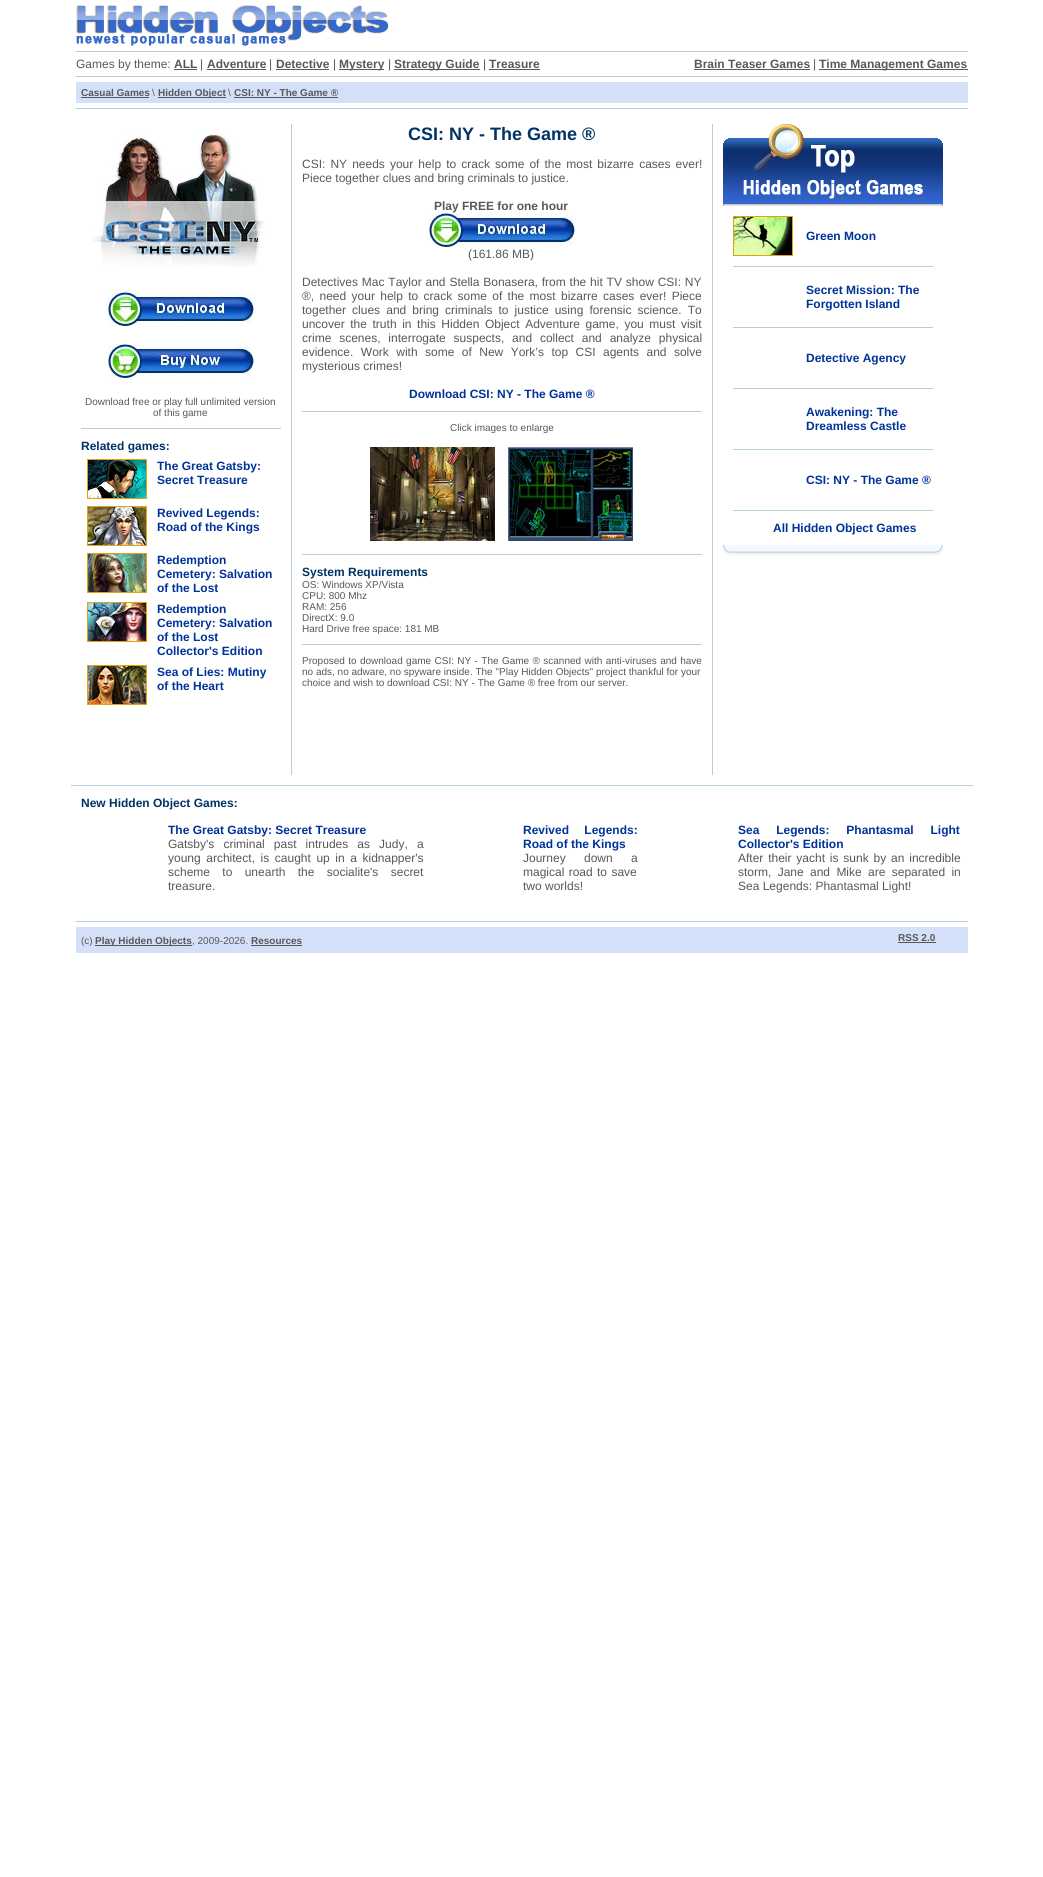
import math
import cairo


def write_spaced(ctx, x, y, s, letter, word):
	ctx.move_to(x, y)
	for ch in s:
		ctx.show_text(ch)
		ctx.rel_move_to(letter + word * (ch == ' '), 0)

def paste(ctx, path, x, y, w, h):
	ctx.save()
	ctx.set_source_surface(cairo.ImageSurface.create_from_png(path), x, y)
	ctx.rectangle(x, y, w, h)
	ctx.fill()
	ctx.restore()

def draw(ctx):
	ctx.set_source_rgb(1, 1, 1)
	ctx.paint()
	paste(ctx, 'media/1.png', 76, 5, 313, 41)
	ctx.set_source_rgb(0.702, 0.808, 0.863)
	ctx.rectangle(76, 51, 892, 1)
	ctx.fill()
	ctx.select_font_face('Liberation Sans')
	ctx.set_font_size(12)
	ctx.set_source_rgb(0.349, 0.345, 0.345)
	ctx.move_to(76, 68)
	ctx.show_text('Games by theme:')
	ctx.select_font_face('Liberation Sans', cairo.FONT_SLANT_NORMAL, cairo.FONT_WEIGHT_BOLD)
	ctx.move_to(174, 68)
	ctx.show_text('ALL')
	ctx.rectangle(174, 69, 23, 1)
	ctx.fill()
	ctx.select_font_face('Liberation Sans')
	ctx.move_to(200, 68)
	ctx.show_text('|')
	ctx.select_font_face('Liberation Sans', cairo.FONT_SLANT_NORMAL, cairo.FONT_WEIGHT_BOLD)
	ctx.move_to(207, 68)
	ctx.show_text('Adventure')
	ctx.rectangle(207, 69, 59, 1)
	ctx.fill()
	ctx.select_font_face('Liberation Sans')
	ctx.move_to(269, 68)
	ctx.show_text('|')
	ctx.select_font_face('Liberation Sans', cairo.FONT_SLANT_NORMAL, cairo.FONT_WEIGHT_BOLD)
	ctx.move_to(276, 68)
	ctx.show_text('Detective')
	ctx.rectangle(276, 69, 53, 1)
	ctx.fill()
	ctx.select_font_face('Liberation Sans')
	ctx.move_to(333, 68)
	ctx.show_text('|')
	ctx.rectangle(339, 69, 45, 1)
	ctx.fill()
	ctx.select_font_face('Liberation Sans', cairo.FONT_SLANT_NORMAL, cairo.FONT_WEIGHT_BOLD)
	ctx.move_to(339, 68)
	ctx.show_text('Mystery')
	ctx.select_font_face('Liberation Sans')
	ctx.move_to(388, 68)
	ctx.show_text('|')
	ctx.rectangle(394, 69, 86, 1)
	ctx.fill()
	ctx.select_font_face('Liberation Sans', cairo.FONT_SLANT_NORMAL, cairo.FONT_WEIGHT_BOLD)
	ctx.move_to(394, 68)
	ctx.show_text('Strategy Guide')
	ctx.select_font_face('Liberation Sans')
	ctx.move_to(483, 68)
	ctx.show_text('|')
	ctx.select_font_face('Liberation Sans', cairo.FONT_SLANT_NORMAL, cairo.FONT_WEIGHT_BOLD)
	ctx.move_to(489, 68)
	ctx.show_text('Treasure')
	ctx.rectangle(489, 69, 51, 1)
	ctx.fill()
	ctx.move_to(694, 68)
	ctx.show_text('Brain Teaser Games')
	ctx.rectangle(694, 69, 116, 1)
	ctx.fill()
	ctx.select_font_face('Liberation Sans')
	ctx.move_to(813, 68)
	ctx.show_text('|')
	ctx.rectangle(819, 69, 149, 1)
	ctx.fill()
	ctx.select_font_face('Liberation Sans', cairo.FONT_SLANT_NORMAL, cairo.FONT_WEIGHT_BOLD)
	ctx.move_to(819, 68)
	ctx.show_text('Time Management Games')
	ctx.set_source_rgb(0.702, 0.808, 0.863)
	ctx.rectangle(76, 76, 892, 1)
	ctx.fill()
	ctx.set_source_rgb(0.831, 0.878, 0.969)
	ctx.rectangle(76, 82, 892, 21)
	ctx.fill()
	ctx.set_font_size(10)
	ctx.set_source_rgb(0.349, 0.345, 0.345)
	ctx.move_to(81, 96)
	ctx.show_text('Casual Games')
	ctx.rectangle(81, 97, 68, 1)
	ctx.fill()
	ctx.select_font_face('Liberation Sans')
	ctx.move_to(152, 96)
	ctx.show_text('\\')
	ctx.rectangle(158, 97, 68, 1)
	ctx.fill()
	ctx.select_font_face('Liberation Sans', cairo.FONT_SLANT_NORMAL, cairo.FONT_WEIGHT_BOLD)
	ctx.move_to(158, 96)
	ctx.show_text('Hidden Object')
	ctx.select_font_face('Liberation Sans')
	ctx.move_to(228, 96)
	ctx.show_text('\\')
	ctx.select_font_face('Liberation Sans', cairo.FONT_SLANT_NORMAL, cairo.FONT_WEIGHT_BOLD)
	ctx.move_to(234, 96)
	ctx.show_text('CSI: NY - The Game ®')
	ctx.rectangle(234, 97, 104, 1)
	ctx.fill()
	ctx.set_source_rgb(0.702, 0.808, 0.863)
	ctx.rectangle(76, 108, 892, 1)
	ctx.fill()
	paste(ctx, 'media/2.png', 93, 132, 172, 135)
	paste(ctx, 'media/3.png', 108, 292, 146, 34)
	paste(ctx, 'media/4.png', 108, 344, 146, 34)
	ctx.select_font_face('Liberation Sans')
	ctx.set_source_rgb(0.349, 0.345, 0.345)
	ctx.move_to(85, 405)
	ctx.show_text('Download free or play full unlimited version')
	ctx.move_to(153, 416)
	ctx.show_text('of this game')
	ctx.set_source_rgb(0.702, 0.808, 0.863)
	ctx.rectangle(81, 428, 200, 1)
	ctx.fill()
	ctx.select_font_face('Liberation Sans', cairo.FONT_SLANT_NORMAL, cairo.FONT_WEIGHT_BOLD)
	ctx.set_font_size(12)
	ctx.set_source_rgb(0, 0.2, 0.4)
	ctx.move_to(81, 450)
	ctx.show_text('Related games:')
	paste(ctx, 'media/5.png', 87, 459, 60, 40)
	ctx.set_source_rgb(0, 0.2, 0.6)
	ctx.move_to(157, 470)
	ctx.show_text('The Great Gatsby:')
	ctx.move_to(157, 484)
	ctx.show_text('Secret Treasure')
	paste(ctx, 'media/6.png', 87, 506, 60, 40)
	ctx.move_to(157, 517)
	ctx.show_text('Revived Legends:')
	ctx.move_to(157, 531)
	ctx.show_text('Road of the Kings')
	paste(ctx, 'media/7.png', 87, 553, 60, 40)
	for x, y, s in [
		(157, 564, 'Redemption'),
		(157, 578, 'Cemetery: Salvation'),
		(157, 592, 'of the Lost'),
	]:
		ctx.move_to(x, y)
		ctx.show_text(s)
	paste(ctx, 'media/8.png', 87, 602, 60, 40)
	for x, y, s in [
		(157, 613, 'Redemption'),
		(157, 627, 'Cemetery: Salvation'),
		(157, 641, 'of the Lost'),
		(157, 655, 'Collector\'s Edition'),
	]:
		ctx.move_to(x, y)
		ctx.show_text(s)
	paste(ctx, 'media/9.png', 87, 665, 60, 40)
	ctx.move_to(157, 676)
	ctx.show_text('Sea of Lies: Mutiny')
	ctx.move_to(157, 690)
	ctx.show_text('of the Heart')
	ctx.set_source_rgb(0.702, 0.808, 0.863)
	ctx.rectangle(291, 124, 1, 651)
	ctx.fill()
	ctx.set_font_size(18)
	ctx.set_source_rgb(0, 0.2, 0.4)
	ctx.move_to(408, 140)
	ctx.show_text('CSI: NY - The Game ®')
	ctx.select_font_face('Liberation Sans')
	ctx.set_font_size(12)
	ctx.set_source_rgb(0.349, 0.345, 0.345)
	write_spaced(ctx, 302, 168, 'CSI: NY needs your help to crack some of the most bizarre cases ever!', 0, 1.75)
	ctx.move_to(302, 182)
	ctx.show_text('Piece together clues and bring criminals to justice.')
	ctx.select_font_face('Liberation Sans', cairo.FONT_SLANT_NORMAL, cairo.FONT_WEIGHT_BOLD)
	ctx.move_to(434, 210)
	ctx.show_text('Play FREE for one hour')
	paste(ctx, 'media/3.png', 429, 213, 146, 34)
	ctx.select_font_face('Liberation Sans')
	ctx.move_to(468, 258)
	ctx.show_text('(161.86 MB)')
	write_spaced(ctx, 302, 286, 'Detectives Mac Taylor and Stella Bonasera, from the hit TV show CSI: NY', 0, 0.5)
	write_spaced(ctx, 302, 300, '®, need your help to crack some of the most bizarre cases ever! Piece', 0, 2)
	write_spaced(ctx, 302, 314, 'together clues and bring criminals to justice using forensic science. To', 0, 2.75)
	write_spaced(ctx, 302, 328, 'uncover the truth in this Hidden Object Adventure game, you must visit', 0, 2.25)
	write_spaced(ctx, 302, 342, 'crime scenes, interrogate suspects, and collect and analyze physical', 0, 4.5)
	write_spaced(ctx, 302, 356, 'evidence. Work with some of New York’s top CSI agents and solve', 0, 4.1)
	ctx.move_to(302, 370)
	ctx.show_text('mysterious crimes!')
	ctx.select_font_face('Liberation Sans', cairo.FONT_SLANT_NORMAL, cairo.FONT_WEIGHT_BOLD)
	ctx.set_source_rgb(0, 0.2, 0.6)
	ctx.move_to(409, 398)
	ctx.show_text('Download CSI: NY - The Game ®')
	ctx.set_source_rgb(0.702, 0.808, 0.863)
	ctx.rectangle(302, 411, 400, 1)
	ctx.fill()
	ctx.select_font_face('Liberation Sans')
	ctx.set_font_size(10)
	ctx.set_source_rgb(0.349, 0.345, 0.345)
	ctx.move_to(450, 431)
	ctx.show_text('Click images to enlarge')
	paste(ctx, 'media/10.png', 370, 447, 125, 94)
	paste(ctx, 'media/11.png', 508, 447, 125, 94)
	ctx.set_source_rgb(0.702, 0.808, 0.863)
	ctx.rectangle(302, 554, 400, 1)
	ctx.fill()
	ctx.select_font_face('Liberation Sans', cairo.FONT_SLANT_NORMAL, cairo.FONT_WEIGHT_BOLD)
	ctx.set_font_size(12)
	ctx.set_source_rgb(0, 0.2, 0.4)
	ctx.move_to(302, 576)
	ctx.show_text('System Requirements')
	ctx.select_font_face('Liberation Sans')
	ctx.set_font_size(10)
	ctx.set_source_rgb(0.349, 0.345, 0.345)
	for x, y, s in [
		(302, 588, 'OS: Windows XP/Vista'),
		(302, 599, 'CPU: 800 Mhz'),
		(302, 610, 'RAM: 256'),
		(302, 621, 'DirectX: 9.0'),
		(302, 632, 'Hard Drive free space: 181 MB'),
	]:
		ctx.move_to(x, y)
		ctx.show_text(s)
	ctx.set_source_rgb(0.702, 0.808, 0.863)
	ctx.rectangle(302, 644, 400, 1)
	ctx.fill()
	ctx.set_source_rgb(0.349, 0.345, 0.345)
	write_spaced(ctx, 302, 664, 'Proposed to download game CSI: NY - The Game ® scanned with anti-viruses and have', 0, 0.6)
	ctx.move_to(302, 675)
	ctx.show_text('no ads, no adware, no spyware inside. The "Play Hidden Objects" project thankful for your')
	ctx.move_to(302, 686)
	ctx.show_text('choice and wish to download CSI: NY - The Game ® free from our server.')
	ctx.set_source_rgb(0.702, 0.808, 0.863)
	ctx.rectangle(712, 124, 1, 651)
	ctx.fill()
	paste(ctx, 'media/12.png', 723, 124, 220, 82)
	paste(ctx, 'media/13.png', 733, 216, 60, 40)
	ctx.select_font_face('Liberation Sans', cairo.FONT_SLANT_NORMAL, cairo.FONT_WEIGHT_BOLD)
	ctx.set_font_size(12)
	ctx.set_source_rgb(0, 0.2, 0.6)
	ctx.move_to(806, 240)
	ctx.show_text('Green Moon')
	ctx.set_source_rgb(0.702, 0.808, 0.863)
	ctx.rectangle(733, 266, 200, 1)
	ctx.fill()
	ctx.set_source_rgb(0, 0.2, 0.6)
	ctx.move_to(806, 294)
	ctx.show_text('Secret Mission: The')
	ctx.move_to(806, 308)
	ctx.show_text('Forgotten Island')
	ctx.set_source_rgb(0.702, 0.808, 0.863)
	ctx.rectangle(733, 327, 200, 1)
	ctx.fill()
	ctx.set_source_rgb(0, 0.2, 0.6)
	ctx.move_to(806, 362)
	ctx.show_text('Detective Agency')
	ctx.set_source_rgb(0.702, 0.808, 0.863)
	ctx.rectangle(733, 388, 200, 1)
	ctx.fill()
	ctx.set_source_rgb(0, 0.2, 0.6)
	ctx.move_to(806, 416)
	ctx.show_text('Awakening: The')
	ctx.move_to(806, 430)
	ctx.show_text('Dreamless Castle')
	ctx.set_source_rgb(0.702, 0.808, 0.863)
	ctx.rectangle(733, 449, 200, 1)
	ctx.fill()
	ctx.set_source_rgb(0, 0.2, 0.6)
	ctx.move_to(806, 484)
	ctx.show_text('CSI: NY - The Game ®')
	ctx.set_source_rgb(0.702, 0.808, 0.863)
	ctx.rectangle(733, 510, 200, 1)
	ctx.fill()
	ctx.set_source_rgb(0, 0.2, 0.6)
	ctx.move_to(773, 532)
	ctx.show_text('All Hidden Object Games')
	paste(ctx, 'media/14.png', 723, 545, 220, 10)
	ctx.set_source_rgb(0.702, 0.808, 0.863)
	ctx.rectangle(71, 785, 902, 1)
	ctx.fill()
	ctx.set_source_rgb(0, 0.2, 0.4)
	ctx.move_to(81, 807)
	ctx.show_text('New Hidden Object Games:')
	ctx.set_source_rgb(0, 0.2, 0.6)
	ctx.move_to(168, 834)
	ctx.show_text('The Great Gatsby: Secret Treasure')
	ctx.select_font_face('Liberation Sans')
	ctx.set_source_rgb(0.349, 0.345, 0.345)
	write_spaced(ctx, 168, 848, 'Gatsby\'s criminal past intrudes as Judy, a', 0, 5.75)
	write_spaced(ctx, 168, 862, 'young architect, is caught up in a kidnapper\'s', 0, 2.25)
	write_spaced(ctx, 168, 876, 'scheme to unearth the socialite\'s secret', 0, 9)
	ctx.move_to(168, 890)
	ctx.show_text('treasure.')
	ctx.select_font_face('Liberation Sans', cairo.FONT_SLANT_NORMAL, cairo.FONT_WEIGHT_BOLD)
	ctx.set_source_rgb(0, 0.2, 0.6)
	write_spaced(ctx, 523, 834, 'Revived Legends:', 0, 12)
	ctx.move_to(523, 848)
	ctx.show_text('Road of the Kings')
	ctx.select_font_face('Liberation Sans')
	ctx.set_source_rgb(0.349, 0.345, 0.345)
	write_spaced(ctx, 523, 862, 'Journey down a', 0, 15)
	write_spaced(ctx, 523, 876, 'magical road to save', 0, 1)
	ctx.move_to(523, 890)
	ctx.show_text('two worlds!')
	ctx.select_font_face('Liberation Sans', cairo.FONT_SLANT_NORMAL, cairo.FONT_WEIGHT_BOLD)
	ctx.set_source_rgb(0, 0.2, 0.6)
	write_spaced(ctx, 738, 834, 'Sea Legends: Phantasmal Light', 0, 13.5)
	ctx.move_to(738, 848)
	ctx.show_text('Collector\'s Edition')
	ctx.select_font_face('Liberation Sans')
	ctx.set_source_rgb(0.349, 0.345, 0.345)
	write_spaced(ctx, 738, 862, 'After their yacht is sunk by an incredible', 0, 1.5)
	write_spaced(ctx, 738, 876, 'storm, Jane and Mike are separated in', 0, 3)
	ctx.move_to(738, 890)
	ctx.show_text('Sea Legends: Phantasmal Light!')
	ctx.set_source_rgb(0.702, 0.808, 0.863)
	ctx.rectangle(76, 921, 892, 1)
	ctx.fill()
	ctx.set_source_rgb(0.831, 0.878, 0.969)
	ctx.rectangle(76, 927, 892, 26)
	ctx.fill()
	ctx.set_font_size(10)
	ctx.set_source_rgb(0.349, 0.345, 0.345)
	ctx.move_to(81, 944)
	ctx.show_text('(c)')
	ctx.rectangle(95, 945, 97, 1)
	ctx.fill()
	ctx.select_font_face('Liberation Sans', cairo.FONT_SLANT_NORMAL, cairo.FONT_WEIGHT_BOLD)
	ctx.move_to(95, 944)
	ctx.show_text('Play Hidden Objects')
	ctx.select_font_face('Liberation Sans')
	ctx.move_to(192, 944)
	ctx.show_text(', 2009-2026.')
	ctx.select_font_face('Liberation Sans', cairo.FONT_SLANT_NORMAL, cairo.FONT_WEIGHT_BOLD)
	ctx.move_to(251, 944)
	ctx.show_text('Resources')
	ctx.rectangle(251, 945, 51, 1)
	ctx.fill()
	ctx.move_to(898, 941)
	ctx.show_text('RSS 2.0')
	ctx.rectangle(898, 942, 38, 1)
	ctx.fill()


surface = cairo.ImageSurface(cairo.FORMAT_RGB24, 1043, 1877)
ctx = cairo.Context(surface)
options = cairo.FontOptions()
options.set_hint_metrics(cairo.HINT_METRICS_OFF)
options.set_hint_style(cairo.HINT_STYLE_NONE)
ctx.set_font_options(options)
ctx.set_miter_limit(4)
draw(ctx)
surface.write_to_png('image.png')
